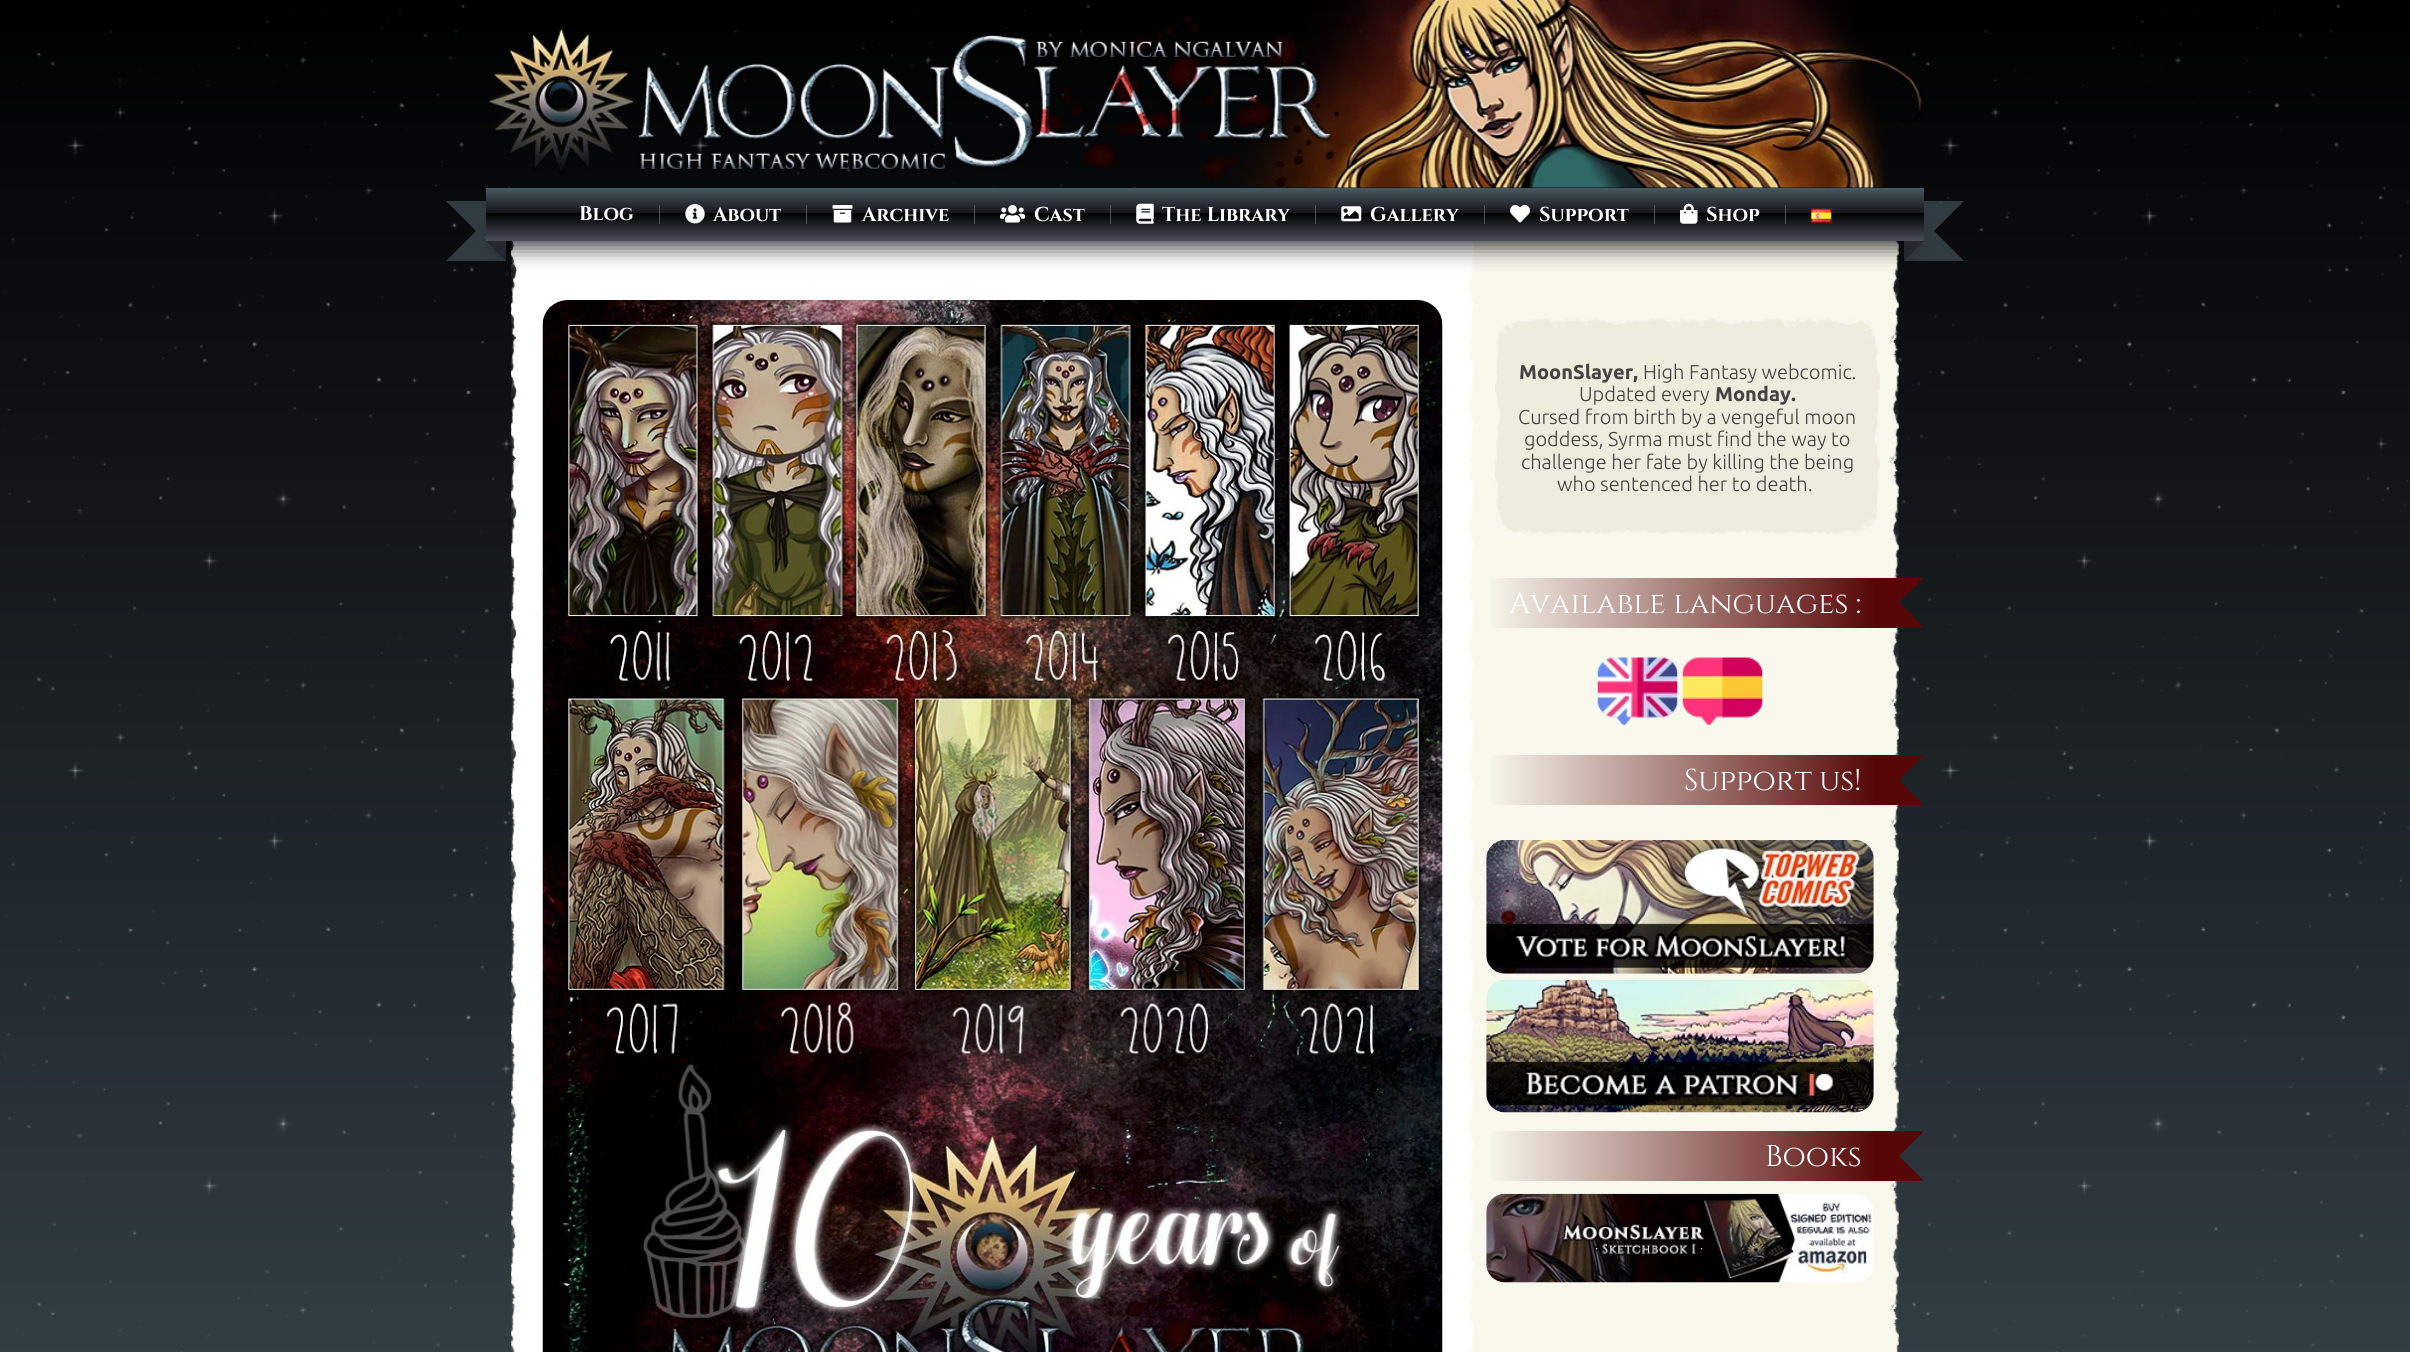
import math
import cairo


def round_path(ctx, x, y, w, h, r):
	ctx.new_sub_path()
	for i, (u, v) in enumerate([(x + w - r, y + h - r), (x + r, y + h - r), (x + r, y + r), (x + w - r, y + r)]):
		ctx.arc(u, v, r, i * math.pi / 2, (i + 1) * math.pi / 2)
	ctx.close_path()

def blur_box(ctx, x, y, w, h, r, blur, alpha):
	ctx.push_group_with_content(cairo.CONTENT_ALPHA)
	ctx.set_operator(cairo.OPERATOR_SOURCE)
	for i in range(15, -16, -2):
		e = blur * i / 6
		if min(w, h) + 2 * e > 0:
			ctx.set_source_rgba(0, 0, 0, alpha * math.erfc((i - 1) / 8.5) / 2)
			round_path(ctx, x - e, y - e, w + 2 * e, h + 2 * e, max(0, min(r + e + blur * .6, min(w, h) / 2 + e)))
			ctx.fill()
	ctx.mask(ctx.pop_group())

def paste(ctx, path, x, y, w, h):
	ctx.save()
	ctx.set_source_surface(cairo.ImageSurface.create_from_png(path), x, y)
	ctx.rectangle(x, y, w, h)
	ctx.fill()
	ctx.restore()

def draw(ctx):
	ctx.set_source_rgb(1, 1, 1)
	ctx.paint()
	gradient = cairo.LinearGradient(1205, 0, 1205, 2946)
	gradient.add_color_stop_rgba(0, 0, 0, 0, 1)
	gradient.add_color_stop_rgba(0.5, 0.212, 0.259, 0.29, 1)
	gradient.add_color_stop_rgba(1, 0.996, 0.847, 0.604, 1)
	ctx.set_source(gradient)
	ctx.rectangle(0, 0, 2410, 1352)
	ctx.fill()
	ctx.set_source_rgb(0.192, 0.235, 0.259)
	ctx.new_path()
	ctx.move_to(446, 201)
	ctx.line_to(506, 201)
	ctx.line_to(476, 231)
	ctx.close_path()
	ctx.fill()
	ctx.rectangle(476, 201, 30, 60)
	ctx.fill()
	ctx.new_path()
	ctx.move_to(506, 261)
	ctx.line_to(446, 261)
	ctx.line_to(476, 231)
	ctx.close_path()
	ctx.fill()
	ctx.new_path()
	ctx.move_to(1904, 201)
	ctx.line_to(1964, 201)
	ctx.line_to(1934, 231)
	ctx.close_path()
	ctx.move_to(1964, 261)
	ctx.line_to(1904, 261)
	ctx.line_to(1934, 231)
	ctx.close_path()
	ctx.fill()
	ctx.rectangle(1904, 201, 30, 60)
	ctx.fill()
	paste(ctx, 'media/1.png', 2, 4, 2408, 1348)
	paste(ctx, 'media/2.png', 1231, 0, 692, 188)
	paste(ctx, 'media/3.png', 489, 15, 851, 172)
	paste(ctx, 'media/12.png', 511, 241, 1388, 1111)
	paste(ctx, 'media/13.png', 511, 241, 963, 1111)
	ctx.set_source_rgb(0, 0, 0)
	blur_box(ctx, 501, 224, 1408, 24, 0, 10.5, 0.75)
	gradient = cairo.LinearGradient(1205, 187, 1205, 241)
	gradient.add_color_stop_rgba(0, 0.286, 0.361, 0.388, 1)
	gradient.add_color_stop_rgba(0.48, 0.082, 0.086, 0.102, 1)
	gradient.add_color_stop_rgba(0.48, 0, 0, 0, 1)
	gradient.add_color_stop_rgba(1, 0.286, 0.302, 0.361, 1)
	ctx.set_source(gradient)
	ctx.rectangle(486, 188, 1438, 53)
	ctx.fill()
	ctx.select_font_face('Cinzel', cairo.FONT_SLANT_NORMAL, cairo.FONT_WEIGHT_BOLD)
	ctx.set_font_size(20)
	ctx.set_source_rgb(1, 1, 1)
	ctx.move_to(579, 220)
	ctx.show_text('Blog')
	ctx.set_source_rgba(0.478, 0.478, 0.478, 0.61)
	ctx.rectangle(659, 205, 1, 19)
	ctx.fill()
	paste(ctx, 'media/4.png', 685, 204, 20, 20)
	ctx.set_source_rgb(1, 1, 1)
	ctx.move_to(713, 221)
	ctx.show_text('About')
	ctx.set_source_rgba(0.478, 0.478, 0.478, 0.61)
	ctx.rectangle(806, 205, 1, 19)
	ctx.fill()
	paste(ctx, 'media/5.png', 832, 205, 21, 18)
	ctx.set_source_rgb(1, 1, 1)
	ctx.move_to(862, 221)
	ctx.show_text('Archive')
	ctx.set_source_rgba(0.478, 0.478, 0.478, 0.61)
	ctx.rectangle(974, 205, 1, 19)
	ctx.fill()
	paste(ctx, 'media/6.png', 1000, 205, 25, 18)
	ctx.set_source_rgb(1, 1, 1)
	ctx.move_to(1034, 221)
	ctx.show_text('Cast')
	ctx.set_source_rgba(0.478, 0.478, 0.478, 0.61)
	ctx.rectangle(1110, 205, 1, 19)
	ctx.fill()
	paste(ctx, 'media/7.png', 1136, 203, 18, 21)
	ctx.set_source_rgb(1, 1, 1)
	ctx.move_to(1162, 221)
	ctx.show_text('The Library')
	ctx.set_source_rgba(0.478, 0.478, 0.478, 0.61)
	ctx.rectangle(1315, 205, 1, 19)
	ctx.fill()
	paste(ctx, 'media/8.png', 1341, 206, 21, 16)
	ctx.set_source_rgb(1, 1, 1)
	ctx.move_to(1370, 221)
	ctx.show_text('Gallery')
	ctx.set_source_rgba(0.478, 0.478, 0.478, 0.61)
	ctx.rectangle(1484, 205, 1, 19)
	ctx.fill()
	paste(ctx, 'media/9.png', 1510, 205, 20, 18)
	ctx.set_source_rgb(1, 1, 1)
	ctx.move_to(1539, 221)
	ctx.show_text('Support')
	ctx.set_source_rgba(0.478, 0.478, 0.478, 0.61)
	ctx.rectangle(1654, 205, 1, 19)
	ctx.fill()
	paste(ctx, 'media/10.png', 1680, 203, 18, 21)
	ctx.set_source_rgb(1, 1, 1)
	ctx.move_to(1706, 221)
	ctx.show_text('Shop')
	ctx.set_source_rgba(0.478, 0.478, 0.478, 0.61)
	ctx.rectangle(1785, 205, 1, 19)
	ctx.fill()
	paste(ctx, 'media/11.png', 1811, 208, 21, 15)
	ctx.set_source_rgb(0.145, 0.153, 0.18)
	ctx.new_path()
	ctx.move_to(486, 241)
	ctx.line_to(506, 241)
	ctx.line_to(506, 261)
	ctx.close_path()
	ctx.fill()
	ctx.new_path()
	ctx.move_to(1904, 241)
	ctx.line_to(1924, 241)
	ctx.line_to(1904, 261)
	ctx.close_path()
	ctx.fill()
	paste(ctx, 'media/14.png', 542, 300, 901, 1052)
	paste(ctx, 'media/15.png', 1495, 318, 385, 216)
	ctx.select_font_face('Ubuntu', cairo.FONT_SLANT_NORMAL, cairo.FONT_WEIGHT_BOLD)
	ctx.set_source_rgb(0.267, 0.267, 0.267)
	ctx.move_to(1519, 379)
	ctx.show_text('MoonSlayer,')
	ctx.select_font_face('Ubuntu Light')
	ctx.move_to(1643, 379)
	ctx.show_text('High Fantasy webcomic.')
	ctx.move_to(1579, 401)
	ctx.show_text('Updated every')
	ctx.select_font_face('Ubuntu', cairo.FONT_SLANT_NORMAL, cairo.FONT_WEIGHT_BOLD)
	ctx.move_to(1715, 401)
	ctx.show_text('Monday.')
	ctx.select_font_face('Ubuntu Light')
	for x, y, s in [
		(1518, 424, 'Cursed from birth by a vengeful moon'),
		(1524, 446, 'goddess, Syrma must find the way to'),
		(1521, 469, 'challenge her fate by killing the being'),
		(1557, 491, 'who sentenced her to death.'),
	]:
		ctx.move_to(x, y)
		ctx.show_text(s)
	gradient = cairo.LinearGradient(1486, 603, 1874, 603)
	gradient.add_color_stop_rgba(0, 0.973, 0.973, 0.929, 1)
	gradient.add_color_stop_rgba(0.44, 0.694, 0.557, 0.533, 1)
	gradient.add_color_stop_rgba(1, 0.341, 0.031, 0.031, 1)
	ctx.set_source(gradient)
	ctx.rectangle(1490, 578, 384, 50)
	ctx.fill()
	ctx.select_font_face('Cinzel')
	ctx.set_font_size(30)
	ctx.set_source_rgb(1, 1, 1)
	ctx.move_to(1509, 613)
	ctx.show_text('Available languages :')
	ctx.set_source_rgb(0.341, 0.031, 0.031)
	ctx.new_path()
	ctx.move_to(1874, 578)
	ctx.line_to(1924, 578)
	ctx.line_to(1899, 602)
	ctx.close_path()
	ctx.move_to(1924, 628)
	ctx.line_to(1874, 628)
	ctx.line_to(1899, 602)
	ctx.close_path()
	ctx.fill()
	ctx.rectangle(1874, 578, 25, 50)
	ctx.fill()
	paste(ctx, 'media/16.png', 1597, 657, 81, 69)
	paste(ctx, 'media/17.png', 1682, 657, 81, 69)
	gradient = cairo.LinearGradient(1486, 780, 1874, 780)
	gradient.add_color_stop_rgba(0, 0.973, 0.973, 0.929, 1)
	gradient.add_color_stop_rgba(0.44, 0.694, 0.557, 0.533, 1)
	gradient.add_color_stop_rgba(1, 0.341, 0.031, 0.031, 1)
	ctx.set_source(gradient)
	ctx.rectangle(1490, 755, 384, 50)
	ctx.fill()
	ctx.set_source_rgb(1, 1, 1)
	ctx.move_to(1684, 790)
	ctx.show_text('Support us!')
	ctx.set_source_rgb(0.341, 0.031, 0.031)
	ctx.new_path()
	ctx.move_to(1874, 755)
	ctx.line_to(1924, 755)
	ctx.line_to(1899, 780)
	ctx.close_path()
	ctx.move_to(1924, 805)
	ctx.line_to(1874, 805)
	ctx.line_to(1899, 780)
	ctx.close_path()
	ctx.fill()
	ctx.rectangle(1874, 755, 25, 50)
	ctx.fill()
	paste(ctx, 'media/18.png', 1486, 840, 388, 134)
	paste(ctx, 'media/19.png', 1486, 980, 388, 133)
	gradient = cairo.LinearGradient(1486, 1156, 1874, 1156)
	gradient.add_color_stop_rgba(0, 0.973, 0.973, 0.929, 1)
	gradient.add_color_stop_rgba(0.44, 0.694, 0.557, 0.533, 1)
	gradient.add_color_stop_rgba(1, 0.341, 0.031, 0.031, 1)
	ctx.set_source(gradient)
	ctx.rectangle(1490, 1131, 384, 50)
	ctx.fill()
	ctx.set_source_rgb(1, 1, 1)
	ctx.move_to(1765, 1166)
	ctx.show_text('Books')
	ctx.set_source_rgb(0.341, 0.031, 0.031)
	ctx.new_path()
	ctx.move_to(1874, 1131)
	ctx.line_to(1924, 1131)
	ctx.line_to(1899, 1156)
	ctx.close_path()
	ctx.move_to(1924, 1181)
	ctx.line_to(1874, 1181)
	ctx.line_to(1899, 1156)
	ctx.close_path()
	ctx.fill()
	ctx.rectangle(1874, 1131, 25, 50)
	ctx.fill()
	paste(ctx, 'media/20.png', 1486, 1193, 388, 90)


surface = cairo.ImageSurface(cairo.FORMAT_RGB24, 2410, 1352)
ctx = cairo.Context(surface)
options = cairo.FontOptions()
options.set_hint_metrics(cairo.HINT_METRICS_OFF)
options.set_hint_style(cairo.HINT_STYLE_NONE)
ctx.set_font_options(options)
ctx.set_miter_limit(4)
draw(ctx)
surface.write_to_png('image.png')
